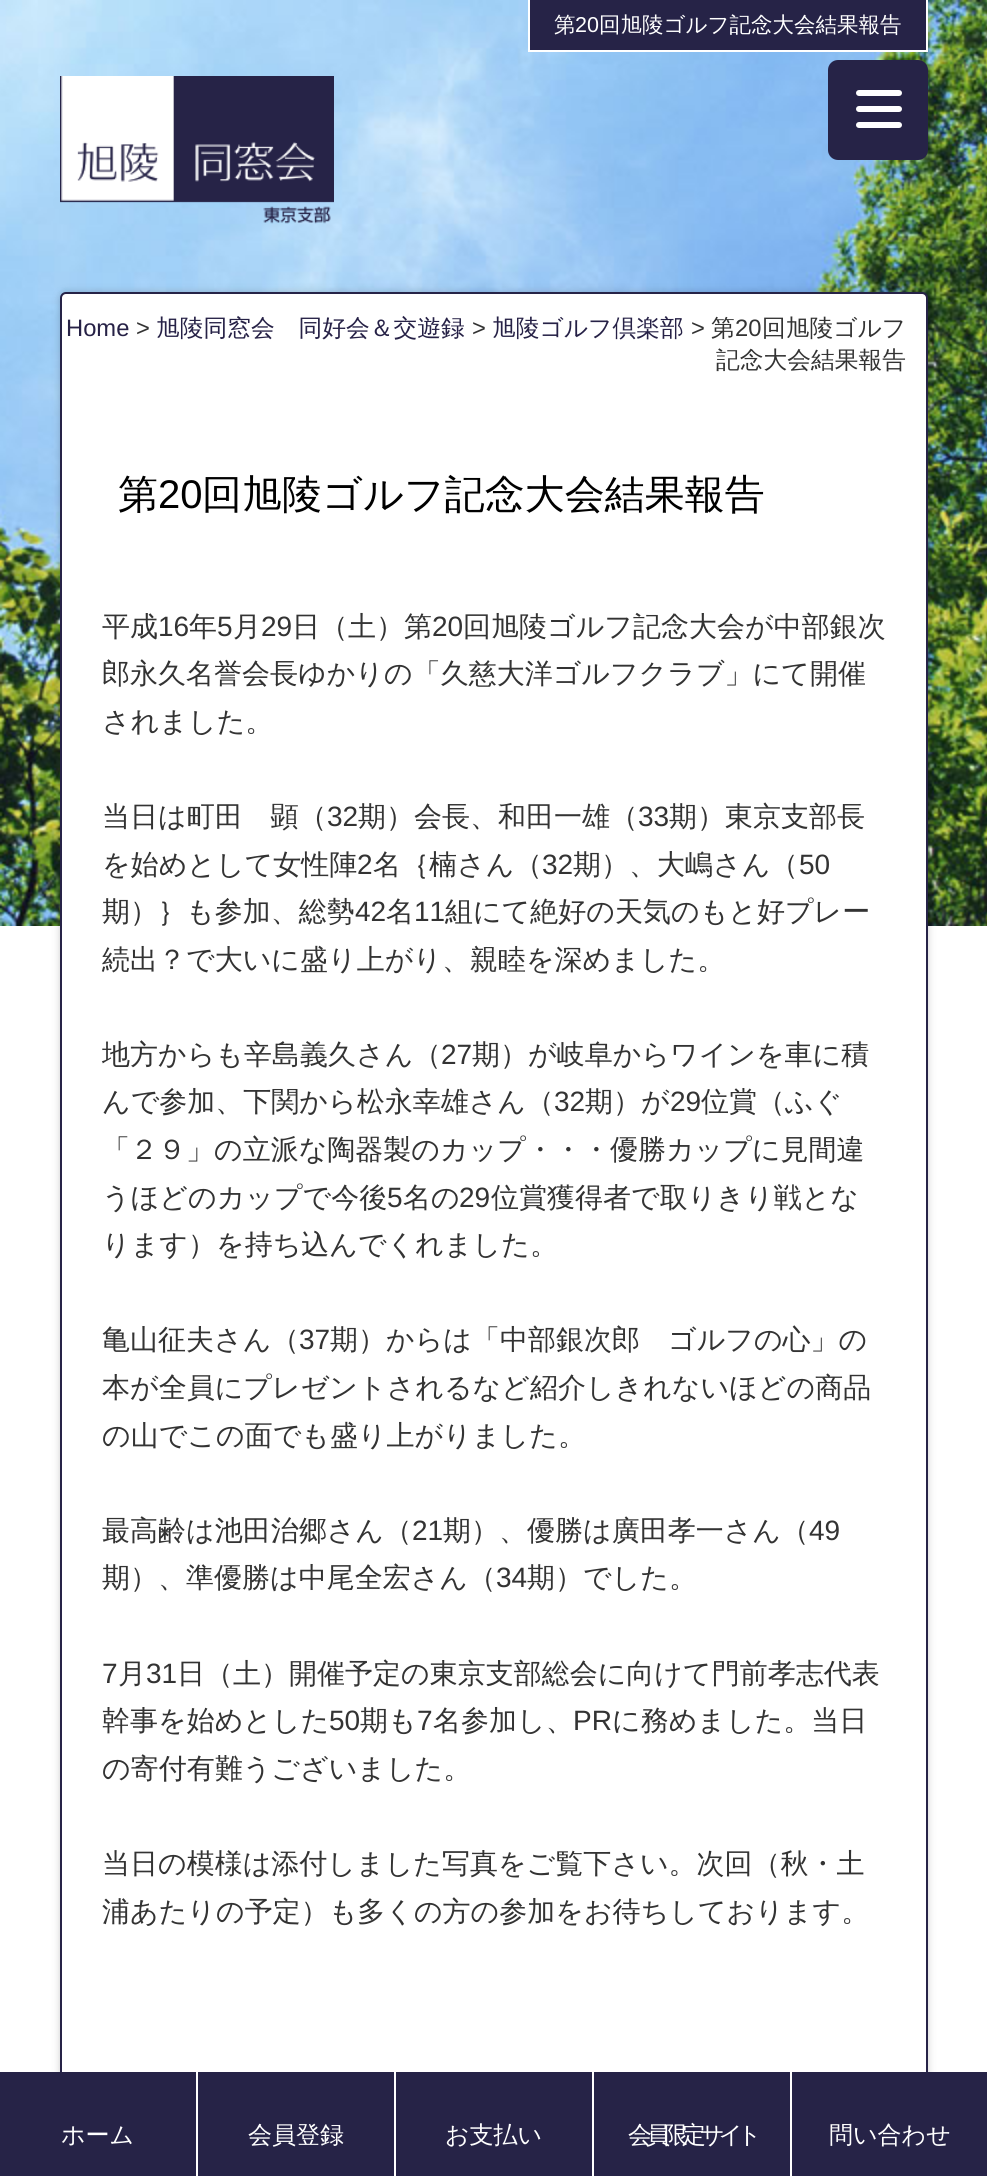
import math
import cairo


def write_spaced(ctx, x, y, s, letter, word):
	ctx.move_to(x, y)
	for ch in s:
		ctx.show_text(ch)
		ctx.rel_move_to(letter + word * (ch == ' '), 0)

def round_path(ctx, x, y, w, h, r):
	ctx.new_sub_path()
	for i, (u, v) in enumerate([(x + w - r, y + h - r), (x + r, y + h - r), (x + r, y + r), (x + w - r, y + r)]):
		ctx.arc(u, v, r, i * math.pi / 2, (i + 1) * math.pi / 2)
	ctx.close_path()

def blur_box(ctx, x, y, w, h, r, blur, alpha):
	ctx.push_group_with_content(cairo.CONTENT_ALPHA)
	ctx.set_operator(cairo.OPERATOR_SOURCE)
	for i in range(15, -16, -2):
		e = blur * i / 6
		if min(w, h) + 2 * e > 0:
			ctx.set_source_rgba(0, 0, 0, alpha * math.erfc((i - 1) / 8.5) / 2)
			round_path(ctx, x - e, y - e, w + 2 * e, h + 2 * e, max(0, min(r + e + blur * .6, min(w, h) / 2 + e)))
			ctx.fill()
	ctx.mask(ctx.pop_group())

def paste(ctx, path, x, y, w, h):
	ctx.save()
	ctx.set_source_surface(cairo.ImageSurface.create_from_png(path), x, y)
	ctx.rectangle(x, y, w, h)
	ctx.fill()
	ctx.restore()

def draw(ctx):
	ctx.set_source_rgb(1, 1, 1)
	ctx.paint()
	paste(ctx, 'media/1.png', 0, 0, 987, 926)
	ctx.set_source_rgb(0.149, 0.137, 0.278)
	ctx.rectangle(530, 0, 396, 50)
	ctx.fill()
	ctx.set_source_rgb(1, 1, 1)
	ctx.rectangle(926, 0, 2, 52)
	ctx.rectangle(528, 50, 400, 2)
	ctx.rectangle(528, 0, 2, 52)
	ctx.fill()
	ctx.select_font_face('WenQuanYi Zen Hei Medium')
	ctx.set_font_size(21.5)
	ctx.move_to(554, 32)
	ctx.show_text('第')
	ctx.select_font_face('Liberation Sans')
	ctx.move_to(575, 32)
	ctx.show_text('20')
	ctx.select_font_face('WenQuanYi Zen Hei Medium')
	ctx.move_to(599, 32)
	ctx.show_text('回旭陵ゴルフ記念大会結果報告')
	paste(ctx, 'media/2.png', 60, 76, 274, 148)
	ctx.set_source_rgb(0.149, 0.137, 0.278)
	round_path(ctx, 828, 60, 100, 100, 10)
	ctx.fill()
	ctx.set_source_rgb(1, 1, 1)
	round_path(ctx, 856, 90, 46, 6, 3)
	ctx.fill()
	round_path(ctx, 856, 106, 46, 6, 3)
	ctx.fill()
	round_path(ctx, 856, 122, 46, 6, 3)
	ctx.fill()
	ctx.set_source_rgb(0, 0, 0)
	blur_box(ctx, 60, 292, 868, 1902, 6, 4, 0.2)
	ctx.set_source_rgb(1, 1, 1)
	round_path(ctx, 61, 293, 866, 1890, 5)
	ctx.fill_preserve()
	ctx.set_source_rgb(0.149, 0.137, 0.278)
	ctx.stroke()
	ctx.select_font_face('Liberation Sans')
	ctx.set_font_size(23.75)
	ctx.set_source_rgb(0.149, 0.129, 0.275)
	ctx.move_to(66, 336)
	ctx.show_text('Home')
	ctx.set_source_rgb(0.2, 0.2, 0.2)
	ctx.move_to(136, 336)
	ctx.show_text('>')
	ctx.select_font_face('WenQuanYi Zen Hei Medium')
	ctx.set_source_rgb(0.149, 0.129, 0.275)
	ctx.move_to(156, 336)
	ctx.show_text('旭陵同窓会　同好会＆交遊録')
	ctx.select_font_face('Liberation Sans')
	ctx.set_source_rgb(0.2, 0.2, 0.2)
	ctx.move_to(472, 336)
	ctx.show_text('>')
	ctx.select_font_face('WenQuanYi Zen Hei Medium')
	ctx.set_source_rgb(0.149, 0.129, 0.275)
	ctx.move_to(492, 336)
	ctx.show_text('旭陵ゴルフ倶楽部')
	ctx.select_font_face('Liberation Sans')
	ctx.set_source_rgb(0.2, 0.2, 0.2)
	ctx.move_to(691, 336)
	ctx.show_text('>')
	ctx.select_font_face('WenQuanYi Zen Hei Medium')
	ctx.move_to(711, 336)
	ctx.show_text('第')
	ctx.select_font_face('Liberation Sans')
	ctx.move_to(735, 336)
	ctx.show_text('20')
	ctx.select_font_face('WenQuanYi Zen Hei Medium')
	ctx.move_to(762, 336)
	ctx.show_text('回旭陵ゴルフ')
	ctx.move_to(716, 368)
	ctx.show_text('記念大会結果報告')
	ctx.set_font_size(40)
	ctx.set_source_rgb(0, 0, 0)
	ctx.move_to(118, 508)
	ctx.show_text('第')
	ctx.select_font_face('Liberation Sans')
	ctx.move_to(158, 508)
	ctx.show_text('20')
	ctx.select_font_face('WenQuanYi Zen Hei Medium')
	ctx.move_to(202, 508)
	ctx.show_text('回旭陵ゴルフ記念大会結果報告')
	ctx.set_font_size(28)
	ctx.set_source_rgb(0.2, 0.2, 0.2)
	ctx.move_to(102, 636)
	ctx.show_text('平成')
	ctx.select_font_face('Liberation Sans')
	ctx.move_to(158, 636)
	ctx.show_text('16')
	ctx.select_font_face('WenQuanYi Zen Hei Medium')
	ctx.move_to(189, 636)
	ctx.show_text('年')
	ctx.select_font_face('Liberation Sans')
	ctx.move_to(217, 636)
	ctx.show_text('5')
	ctx.select_font_face('WenQuanYi Zen Hei Medium')
	ctx.move_to(233, 636)
	ctx.show_text('月')
	ctx.select_font_face('Liberation Sans')
	ctx.move_to(261, 636)
	ctx.show_text('29')
	ctx.select_font_face('WenQuanYi Zen Hei Medium')
	ctx.move_to(292, 636)
	ctx.show_text('日（土）第')
	ctx.select_font_face('Liberation Sans')
	ctx.move_to(432, 636)
	ctx.show_text('20')
	ctx.select_font_face('WenQuanYi Zen Hei Medium')
	for x, y, s in [
		(463, 636, '回旭陵ゴルフ記念大会が中部銀次'),
		(102, 683, '郎永久名誉会長ゆかりの「久慈大洋ゴルフクラブ」にて開催'),
		(102, 731, 'されました。'),
		(102, 826, '当日は町田　顕（'),
	]:
		ctx.move_to(x, y)
		ctx.show_text(s)
	ctx.select_font_face('Liberation Sans')
	ctx.move_to(327, 826)
	ctx.show_text('32')
	ctx.select_font_face('WenQuanYi Zen Hei Medium')
	ctx.move_to(358, 826)
	ctx.show_text('期）会長、和田一雄（')
	ctx.select_font_face('Liberation Sans')
	ctx.move_to(638, 826)
	ctx.show_text('33')
	ctx.select_font_face('WenQuanYi Zen Hei Medium')
	ctx.move_to(669, 826)
	ctx.show_text('期）東京支部長')
	ctx.move_to(102, 874)
	ctx.show_text('を始めとして女性陣')
	ctx.select_font_face('Liberation Sans')
	ctx.move_to(357, 874)
	ctx.show_text('2')
	ctx.select_font_face('WenQuanYi Zen Hei Medium')
	ctx.move_to(373, 874)
	ctx.show_text('名｛楠さん（')
	ctx.select_font_face('Liberation Sans')
	ctx.move_to(542, 874)
	ctx.show_text('32')
	ctx.select_font_face('WenQuanYi Zen Hei Medium')
	ctx.move_to(573, 874)
	ctx.show_text('期）、大嶋さん（')
	ctx.select_font_face('Liberation Sans')
	ctx.move_to(799, 874)
	ctx.show_text('50')
	ctx.select_font_face('WenQuanYi Zen Hei Medium')
	ctx.move_to(102, 921)
	ctx.show_text('期）｝も参加、総勢')
	ctx.select_font_face('Liberation Sans')
	ctx.move_to(355, 921)
	ctx.show_text('42')
	ctx.select_font_face('WenQuanYi Zen Hei Medium')
	ctx.move_to(386, 921)
	ctx.show_text('名')
	ctx.select_font_face('Liberation Sans')
	ctx.move_to(414, 921)
	ctx.show_text('11')
	ctx.select_font_face('WenQuanYi Zen Hei Medium')
	for x, y, s in [
		(445, 921, '組にて絶好の天気のもと好プレー'),
		(102, 969, '続出？で大いに盛り上がり、親睦を深めました。'),
		(102, 1064, '地方からも辛島義久さん（'),
	]:
		ctx.move_to(x, y)
		ctx.show_text(s)
	ctx.select_font_face('Liberation Sans')
	ctx.move_to(441, 1064)
	ctx.show_text('27')
	ctx.select_font_face('WenQuanYi Zen Hei Medium')
	ctx.move_to(472, 1064)
	ctx.show_text('期）が岐阜からワインを車に積')
	ctx.move_to(102, 1111)
	ctx.show_text('んで参加、下関から松永幸雄さん（')
	ctx.select_font_face('Liberation Sans')
	ctx.move_to(554, 1111)
	ctx.show_text('32')
	ctx.select_font_face('WenQuanYi Zen Hei Medium')
	ctx.move_to(585, 1111)
	ctx.show_text('期）が')
	ctx.select_font_face('Liberation Sans')
	ctx.move_to(670, 1111)
	ctx.show_text('29')
	ctx.select_font_face('WenQuanYi Zen Hei Medium')
	for x, y, s in [
		(701, 1111, '位賞（ふぐ'),
		(102, 1159, '「２９」の立派な陶器製のカップ・・・優勝カップに見間違'),
		(102, 1207, 'うほどのカップで今後'),
	]:
		ctx.move_to(x, y)
		ctx.show_text(s)
	ctx.select_font_face('Liberation Sans')
	ctx.move_to(387, 1207)
	ctx.show_text('5')
	ctx.select_font_face('WenQuanYi Zen Hei Medium')
	ctx.move_to(403, 1207)
	ctx.show_text('名の')
	ctx.select_font_face('Liberation Sans')
	ctx.move_to(459, 1207)
	ctx.show_text('29')
	ctx.select_font_face('WenQuanYi Zen Hei Medium')
	for x, y, s in [
		(491, 1207, '位賞獲得者で取りきり戦とな'),
		(102, 1254, 'ります）を持ち込んでくれました。'),
		(102, 1349, '亀山征夫さん（'),
	]:
		ctx.move_to(x, y)
		ctx.show_text(s)
	ctx.select_font_face('Liberation Sans')
	ctx.move_to(299, 1349)
	ctx.show_text('37')
	ctx.select_font_face('WenQuanYi Zen Hei Medium')
	for x, y, s in [
		(330, 1349, '期）からは「中部銀次郎　ゴルフの心」の'),
		(102, 1397, '本が全員にプレゼントされるなど紹介しきれないほどの商品'),
		(102, 1445, 'の山でこの面でも盛り上がりました。'),
		(102, 1540, '最高齢は池田治郷さん（'),
	]:
		ctx.move_to(x, y)
		ctx.show_text(s)
	ctx.select_font_face('Liberation Sans')
	ctx.move_to(412, 1540)
	ctx.show_text('21')
	ctx.select_font_face('WenQuanYi Zen Hei Medium')
	ctx.move_to(443, 1540)
	ctx.show_text('期）、優勝は廣田孝一さん（')
	ctx.select_font_face('Liberation Sans')
	ctx.move_to(809, 1540)
	ctx.show_text('49')
	ctx.select_font_face('WenQuanYi Zen Hei Medium')
	ctx.move_to(102, 1587)
	ctx.show_text('期）、準優勝は中尾全宏さん（')
	ctx.select_font_face('Liberation Sans')
	ctx.move_to(496, 1587)
	ctx.show_text('34')
	ctx.select_font_face('WenQuanYi Zen Hei Medium')
	ctx.move_to(527, 1587)
	ctx.show_text('期）でした。')
	ctx.select_font_face('Liberation Sans')
	ctx.move_to(102, 1683)
	ctx.show_text('7')
	ctx.select_font_face('WenQuanYi Zen Hei Medium')
	ctx.move_to(118, 1683)
	ctx.show_text('月')
	ctx.select_font_face('Liberation Sans')
	ctx.move_to(146, 1683)
	ctx.show_text('31')
	ctx.select_font_face('WenQuanYi Zen Hei Medium')
	ctx.move_to(177, 1683)
	ctx.show_text('日（土）開催予定の東京支部総会に向けて門前孝志代表')
	ctx.move_to(102, 1730)
	ctx.show_text('幹事を始めとした')
	ctx.select_font_face('Liberation Sans')
	ctx.move_to(329, 1730)
	ctx.show_text('50')
	ctx.select_font_face('WenQuanYi Zen Hei Medium')
	ctx.move_to(360, 1730)
	ctx.show_text('期も')
	ctx.select_font_face('Liberation Sans')
	ctx.move_to(417, 1730)
	ctx.show_text('7')
	ctx.select_font_face('WenQuanYi Zen Hei Medium')
	ctx.move_to(433, 1730)
	ctx.show_text('名参加し、')
	ctx.select_font_face('Liberation Sans')
	ctx.move_to(573, 1730)
	ctx.show_text('PR')
	ctx.select_font_face('WenQuanYi Zen Hei Medium')
	for x, y, s in [
		(612, 1730, 'に務めました。当日'),
		(102, 1778, 'の寄付有難うございました。'),
		(102, 1873, '当日の模様は添付しました写真をご覧下さい。次回（秋・土'),
		(102, 1921, '浦あたりの予定）も多くの方の参加をお待ちしております。'),
	]:
		ctx.move_to(x, y)
		ctx.show_text(s)
	ctx.set_source_rgb(0.149, 0.137, 0.278)
	ctx.rectangle(0, 2072, 987, 104)
	ctx.fill()
	ctx.set_source_rgb(1, 1, 1)
	ctx.rectangle(196, 2072, 2, 104)
	ctx.fill()
	ctx.set_font_size(24)
	ctx.move_to(61, 2143)
	ctx.show_text('ホーム')
	ctx.rectangle(394, 2072, 2, 104)
	ctx.fill()
	ctx.move_to(248, 2143)
	ctx.show_text('会員登録')
	ctx.rectangle(592, 2072, 2, 104)
	ctx.fill()
	ctx.move_to(445, 2143)
	ctx.show_text('お支払い')
	ctx.rectangle(790, 2072, 2, 104)
	ctx.fill()
	write_spaced(ctx, 628, 2143, '会員限定サイト', -6, 0)
	ctx.move_to(829, 2143)
	ctx.show_text('問い合わせ')


surface = cairo.ImageSurface(cairo.FORMAT_RGB24, 987, 2176)
ctx = cairo.Context(surface)
options = cairo.FontOptions()
options.set_hint_metrics(cairo.HINT_METRICS_OFF)
options.set_hint_style(cairo.HINT_STYLE_NONE)
ctx.set_font_options(options)
ctx.set_miter_limit(4)
draw(ctx)
surface.write_to_png('image.png')
